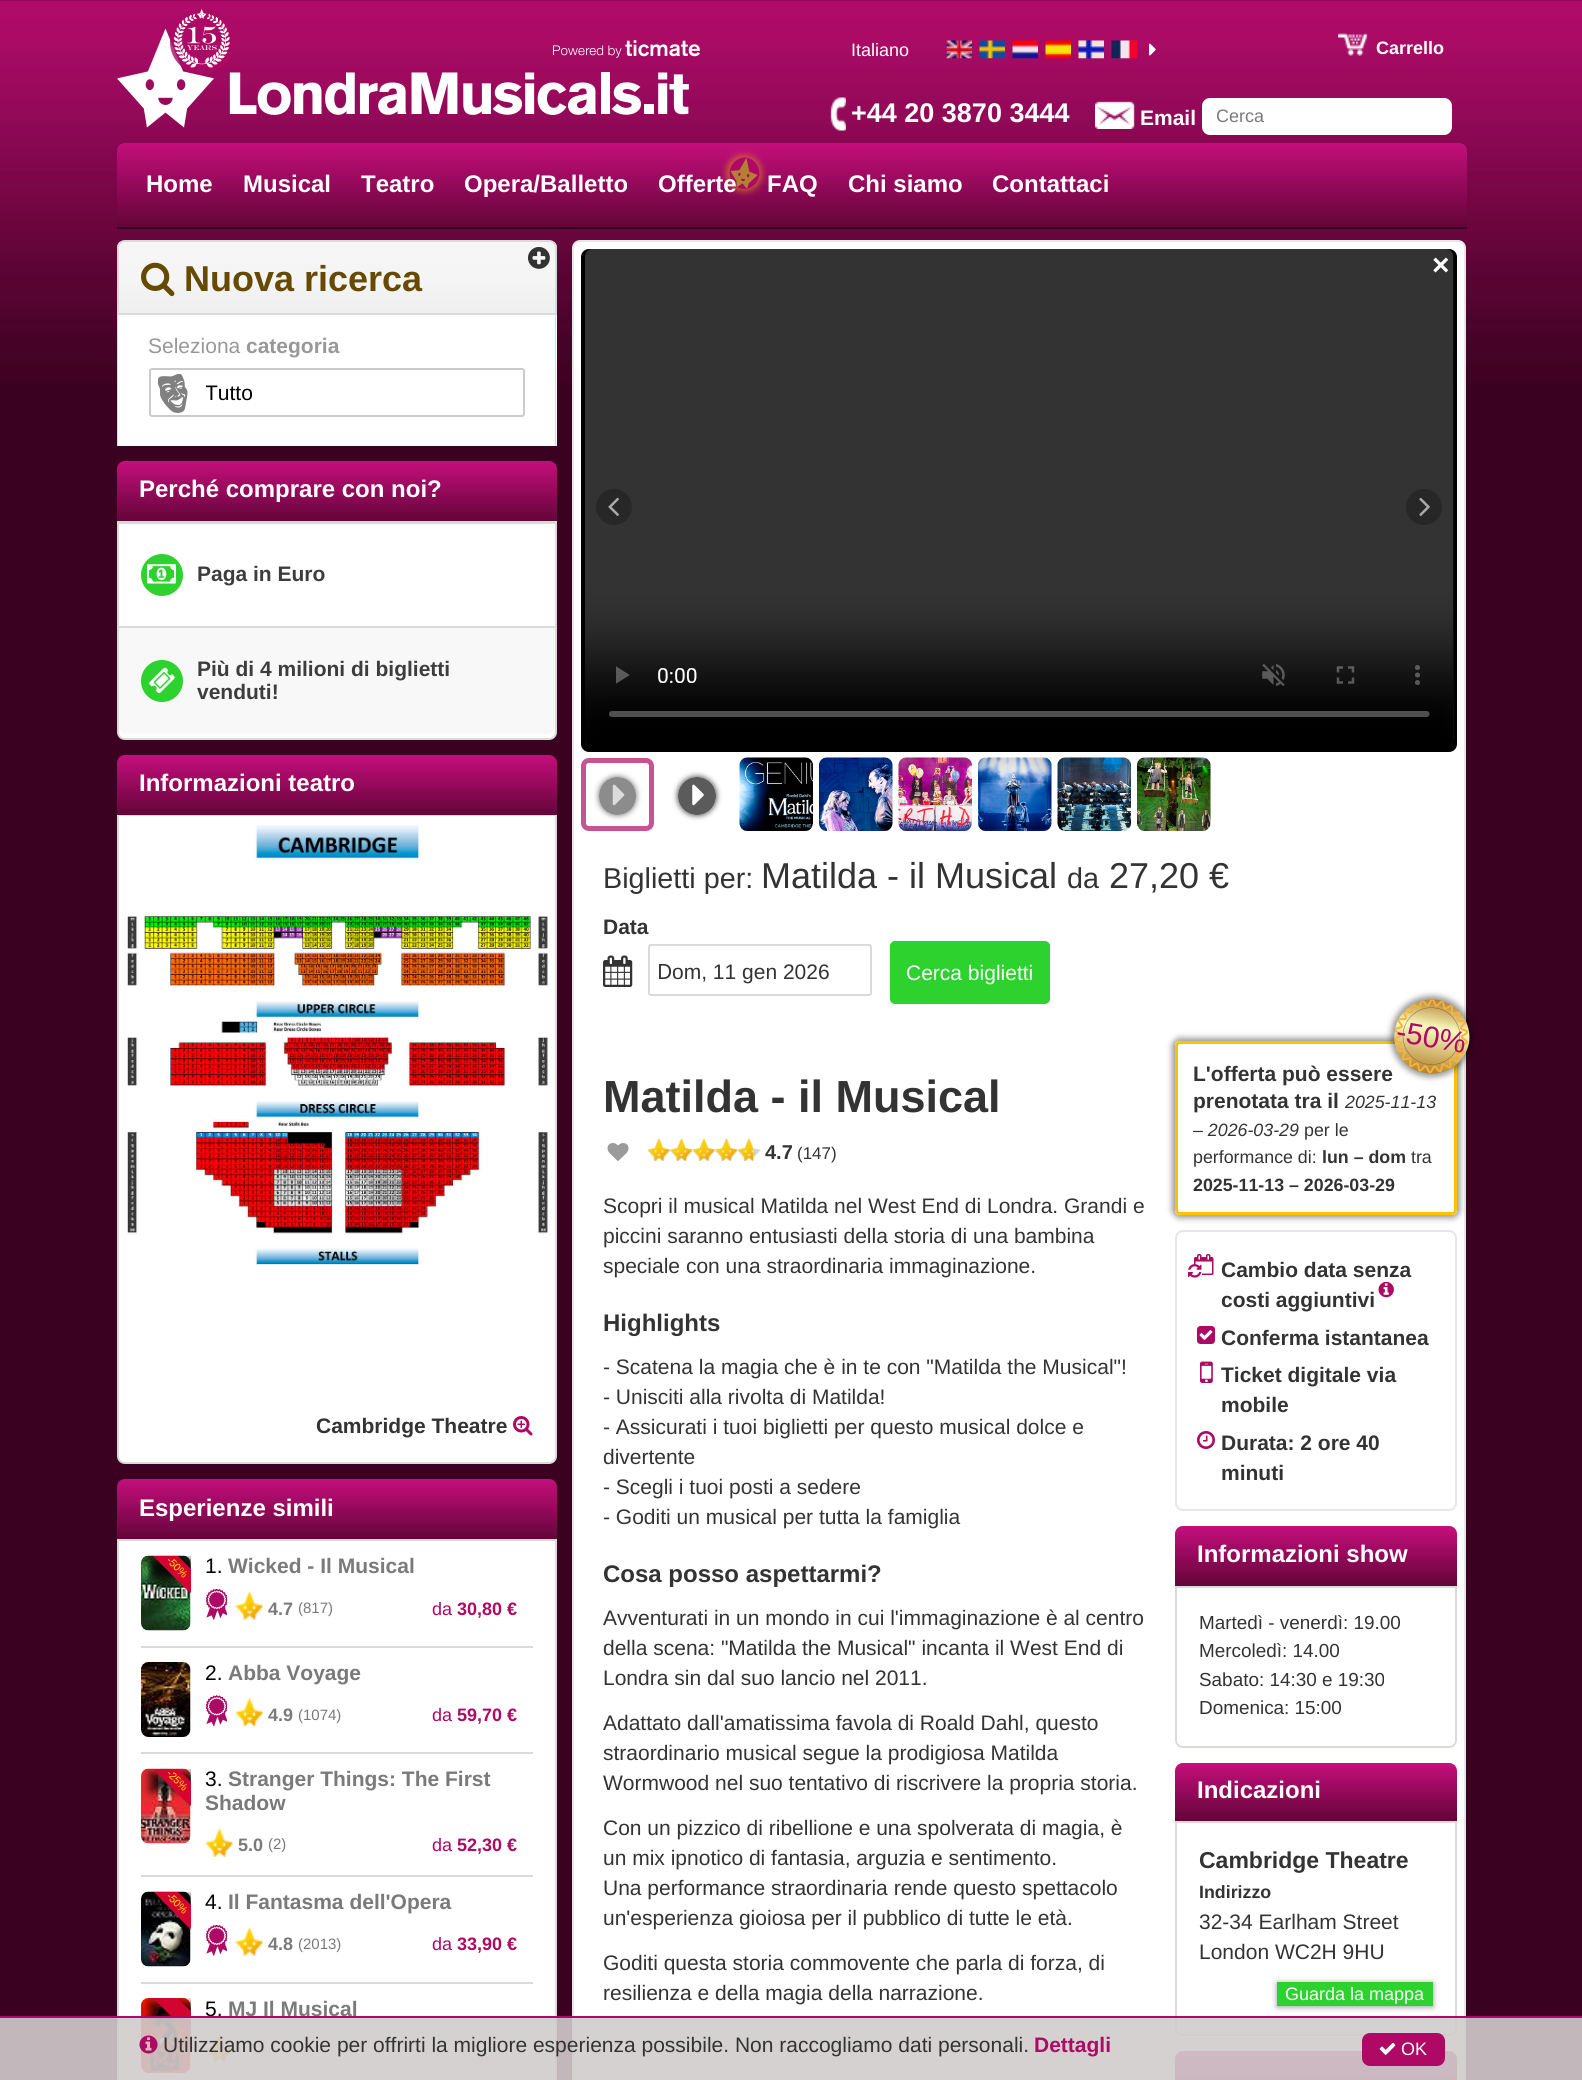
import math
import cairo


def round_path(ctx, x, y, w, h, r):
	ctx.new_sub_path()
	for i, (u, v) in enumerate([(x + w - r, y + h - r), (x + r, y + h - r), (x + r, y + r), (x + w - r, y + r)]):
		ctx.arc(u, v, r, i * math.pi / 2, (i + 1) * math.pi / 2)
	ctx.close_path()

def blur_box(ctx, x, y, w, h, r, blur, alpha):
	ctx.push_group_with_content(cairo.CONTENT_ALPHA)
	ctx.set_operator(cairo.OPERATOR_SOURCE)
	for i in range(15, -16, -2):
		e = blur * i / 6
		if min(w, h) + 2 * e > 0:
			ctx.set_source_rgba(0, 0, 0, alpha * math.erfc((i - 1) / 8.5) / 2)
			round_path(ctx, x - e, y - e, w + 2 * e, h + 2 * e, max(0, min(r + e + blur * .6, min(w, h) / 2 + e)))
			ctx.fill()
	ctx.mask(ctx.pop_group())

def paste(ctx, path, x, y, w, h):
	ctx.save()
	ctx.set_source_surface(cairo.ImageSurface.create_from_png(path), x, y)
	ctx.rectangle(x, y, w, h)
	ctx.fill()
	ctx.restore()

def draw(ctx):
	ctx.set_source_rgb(0.227, 0.004, 0.129)
	ctx.paint()
	paste(ctx, 'media/1.png', 0, 0, 1582, 383)
	paste(ctx, 'media/3.png', 117, 29, 572, 99)
	ctx.set_source_rgba(0.678, 0.043, 0.396, 0.8)
	round_path(ctx, 170, 9, 64, 65, 32)
	ctx.fill()
	paste(ctx, 'media/2.png', 173, 9, 57, 59)
	paste(ctx, 'media/4.png', 552, 40, 148, 18)
	paste(ctx, 'media/5.png', 1338, 33, 30, 23)
	ctx.select_font_face('Liberation Sans', cairo.FONT_SLANT_NORMAL, cairo.FONT_WEIGHT_BOLD)
	ctx.set_font_size(18)
	ctx.set_source_rgb(1, 1, 1)
	ctx.move_to(1376, 54)
	ctx.show_text('Carrello')
	paste(ctx, 'media/6.png', 830, 97, 16, 34)
	ctx.set_font_size(27)
	ctx.move_to(851, 122)
	ctx.show_text('+44 20 3870 3444')
	paste(ctx, 'media/7.png', 1095, 101, 40, 28)
	ctx.set_font_size(21)
	ctx.move_to(1140, 125)
	ctx.show_text('Email')
	gradient = cairo.LinearGradient(792, 142, 792, 227)
	gradient.add_color_stop_rgba(0, 0.776, 0.055, 0.486, 1)
	gradient.add_color_stop_rgba(1, 0.388, 0.02, 0.224, 1)
	ctx.set_source(gradient)
	ctx.new_path()
	ctx.move_to(125, 143)
	ctx.line_to(1459, 143)
	ctx.curve_to(1463.5, 143, 1467, 146.5, 1467, 151)
	ctx.line_to(1467, 227)
	ctx.line_to(117, 227)
	ctx.line_to(117, 151)
	ctx.curve_to(117, 146.5, 120.5, 143, 125, 143)
	ctx.close_path()
	ctx.fill()
	ctx.set_source_rgb(0.188, 0.012, 0.133)
	ctx.rectangle(117, 227, 1350, 2)
	ctx.fill()
	ctx.select_font_face('Liberation Sans')
	ctx.set_font_size(18)
	ctx.set_source_rgb(1, 1, 1)
	ctx.move_to(851, 56)
	ctx.show_text('Italiano')
	paste(ctx, 'media/8.png', 946, 40, 26, 19)
	paste(ctx, 'media/9.png', 979, 40, 26, 19)
	paste(ctx, 'media/10.png', 1012, 40, 26, 19)
	paste(ctx, 'media/11.png', 1045, 40, 26, 19)
	paste(ctx, 'media/12.png', 1078, 40, 26, 19)
	paste(ctx, 'media/13.png', 1111, 40, 26, 19)
	paste(ctx, 'media/14.png', 1149, 43, 7, 13)
	round_path(ctx, 1202, 98, 250, 37, 8)
	ctx.fill()
	ctx.save()
	ctx.rectangle(1217, 105, 232, 21)
	ctx.clip()
	ctx.set_source_rgb(0.478, 0.478, 0.478)
	ctx.move_to(1216, 122)
	ctx.show_text('Cerca')
	ctx.restore()
	ctx.select_font_face('Liberation Sans', cairo.FONT_SLANT_NORMAL, cairo.FONT_WEIGHT_BOLD)
	ctx.set_font_size(24)
	for x, y, s in [
		(146, 192, 'Home'),
		(243, 192, 'Musical'),
		(361, 192, 'Teatro'),
		(464, 192, 'Opera/Balletto'),
	]:
		ctx.move_to(x, y)
		ctx.show_text(s)
	ctx.set_source_rgb(1, 0.761, 0)
	blur_box(ctx, 726, 155, 36, 37, 18, 3, 0.4)
	ctx.set_source_rgb(0.678, 0.039, 0.396)
	ctx.new_path()
	ctx.move_to(746, 157.5)
	ctx.curve_to(754, 158.5, 760, 166, 759.5, 174.5)
	ctx.curve_to(758.5, 183, 751.5, 189.5, 743, 189)
	ctx.curve_to(735, 188, 729, 180.5, 729.5, 172)
	ctx.curve_to(730.5, 163.5, 737.5, 157, 746, 157.5)
	ctx.close_path()
	ctx.fill()
	paste(ctx, 'media/15.png', 730, 158, 28, 31)
	ctx.set_source_rgb(1, 1, 1)
	for x, y, s in [
		(658, 192, 'Offerte'),
		(767, 192, 'FAQ'),
		(848, 192, 'Chi siamo'),
		(992, 192, 'Contattaci'),
	]:
		ctx.move_to(x, y)
		ctx.show_text(s)
	ctx.save()
	ctx.new_path()
	ctx.move_to(125, 240)
	ctx.line_to(549, 240)
	ctx.curve_to(553.5, 240, 557, 243.5, 557, 248)
	ctx.line_to(557, 315)
	ctx.line_to(117, 315)
	ctx.line_to(117, 248)
	ctx.curve_to(117, 243.5, 120.5, 240, 125, 240)
	ctx.close_path()
	ctx.clip()
	gradient = cairo.LinearGradient(337, 241, 337, 314)
	gradient.add_color_stop_rgba(0, 0.969, 0.965, 0.965, 1)
	gradient.add_color_stop_rgba(0.52, 0.965, 0.961, 0.961, 1)
	gradient.add_color_stop_rgba(0.77, 0.949, 0.945, 0.945, 1)
	gradient.add_color_stop_rgba(1, 0.941, 0.937, 0.937, 1)
	ctx.set_source(gradient)
	ctx.rectangle(117, 242, 440, 71)
	ctx.fill()
	ctx.restore()
	ctx.new_path()
	ctx.move_to(125, 241)
	ctx.line_to(549, 241)
	ctx.curve_to(553, 241, 556, 244, 556, 248)
	ctx.line_to(556, 314)
	ctx.line_to(118, 314)
	ctx.line_to(118, 248)
	ctx.curve_to(118, 244, 121, 241, 125, 241)
	ctx.close_path()
	ctx.set_source_rgb(0.859, 0.855, 0.855)
	ctx.stroke()
	paste(ctx, 'media/16.png', 528, 247, 22, 22)
	paste(ctx, 'media/17.png', 141, 262, 34, 35)
	ctx.set_font_size(36)
	ctx.set_source_rgb(0.4, 0.29, 0.004)
	ctx.move_to(184, 291)
	ctx.show_text('Nuova ricerca')
	ctx.set_source_rgb(1, 1, 1)
	ctx.rectangle(118, 315, 439, 131)
	ctx.fill()
	ctx.save()
	ctx.rectangle(117, 315, 440, 131)
	ctx.clip()
	ctx.set_source_rgb(0.859, 0.855, 0.843)
	ctx.set_fill_rule(cairo.FILL_RULE_EVEN_ODD)
	ctx.new_path()
	ctx.move_to(117, 315)
	ctx.line_to(556, 315)
	ctx.line_to(556, 702)
	ctx.curve_to(556, 706, 553, 710, 549, 710)
	ctx.line_to(124, 710)
	ctx.curve_to(120, 710, 117, 706, 117, 702)
	ctx.close_path()
	ctx.move_to(118, 315)
	ctx.line_to(555, 315)
	ctx.line_to(555, 702)
	ctx.curve_to(555, 705, 552, 708, 549, 708)
	ctx.line_to(124, 708)
	ctx.curve_to(121, 708, 118, 705, 118, 702)
	ctx.close_path()
	ctx.fill()
	ctx.restore()
	ctx.select_font_face('Liberation Sans')
	ctx.set_font_size(21)
	ctx.set_source_rgb(0.596, 0.596, 0.596)
	ctx.move_to(148, 353)
	ctx.show_text('Seleziona')
	ctx.select_font_face('Liberation Sans', cairo.FONT_SLANT_NORMAL, cairo.FONT_WEIGHT_BOLD)
	ctx.move_to(246, 353)
	ctx.show_text('categoria')
	round_path(ctx, 150, 369, 374, 47, 2)
	ctx.set_source_rgb(0.796, 0.796, 0.796)
	ctx.stroke()
	paste(ctx, 'media/18.png', 158, 374, 30, 39)
	ctx.save()
	ctx.rectangle(206, 378, 318, 30)
	ctx.clip()
	ctx.select_font_face('Liberation Sans')
	ctx.set_source_rgb(0, 0, 0)
	ctx.move_to(205, 400)
	ctx.show_text('Tutto')
	ctx.restore()
	gradient = cairo.LinearGradient(337, 461, 337, 521)
	gradient.add_color_stop_rgba(0, 0.776, 0.055, 0.486, 1)
	gradient.add_color_stop_rgba(1, 0.388, 0.02, 0.224, 1)
	ctx.set_source(gradient)
	ctx.new_path()
	ctx.move_to(125, 461)
	ctx.line_to(549, 461)
	ctx.curve_to(553.5, 461, 557, 464.5, 557, 469)
	ctx.line_to(557, 521)
	ctx.line_to(117, 521)
	ctx.line_to(117, 469)
	ctx.curve_to(117, 464.5, 120.5, 461, 125, 461)
	ctx.close_path()
	ctx.fill()
	ctx.set_font_size(24)
	ctx.set_source_rgb(1, 1, 1)
	ctx.move_to(139, 497)
	ctx.show_text('Perché comprare con noi?')
	ctx.new_path()
	ctx.move_to(118, 522)
	ctx.line_to(556, 522)
	ctx.line_to(556, 732)
	ctx.curve_to(556, 736, 553, 739, 549, 739)
	ctx.line_to(125, 739)
	ctx.curve_to(121, 739, 118, 736, 118, 732)
	ctx.close_path()
	ctx.fill_preserve()
	ctx.set_source_rgb(0.859, 0.855, 0.843)
	ctx.stroke()
	ctx.set_source_rgb(0.859, 0.855, 0.855)
	ctx.rectangle(119, 522, 436, 2)
	ctx.fill()
	ctx.set_source_rgb(0.18, 0.824, 0.18)
	ctx.arc(162, 575, 21, 0, 2 * math.pi)
	ctx.fill()
	paste(ctx, 'media/19.png', 147, 564, 29, 20)
	ctx.set_font_size(21)
	ctx.set_source_rgb(0.239, 0.239, 0.239)
	ctx.move_to(197, 581)
	ctx.show_text('Paga in Euro')
	ctx.set_source_rgb(0.969, 0.969, 0.969)
	ctx.new_path()
	ctx.move_to(119, 626)
	ctx.line_to(555, 626)
	ctx.line_to(555, 726)
	ctx.curve_to(555, 730.5, 551.5, 734, 547, 734)
	ctx.line_to(127, 734)
	ctx.curve_to(122.5, 734, 119, 730.5, 119, 726)
	ctx.close_path()
	ctx.fill()
	ctx.set_source_rgb(0.859, 0.855, 0.855)
	ctx.rectangle(119, 626, 436, 2)
	ctx.fill()
	ctx.set_source_rgb(0.18, 0.824, 0.18)
	ctx.arc(162, 681, 21, 0, 2 * math.pi)
	ctx.fill()
	paste(ctx, 'media/20.png', 149, 667, 26, 26)
	ctx.set_source_rgb(0.239, 0.239, 0.239)
	ctx.move_to(197, 676)
	ctx.show_text('Più di 4 milioni di biglietti')
	ctx.move_to(197, 699)
	ctx.show_text('venduti!')
	gradient = cairo.LinearGradient(337, 755, 337, 815)
	gradient.add_color_stop_rgba(0, 0.776, 0.055, 0.486, 1)
	gradient.add_color_stop_rgba(1, 0.388, 0.02, 0.224, 1)
	ctx.set_source(gradient)
	ctx.new_path()
	ctx.move_to(125, 755)
	ctx.line_to(549, 755)
	ctx.curve_to(553.5, 755, 557, 758.5, 557, 763)
	ctx.line_to(557, 815)
	ctx.line_to(117, 815)
	ctx.line_to(117, 763)
	ctx.curve_to(117, 758.5, 120.5, 755, 125, 755)
	ctx.close_path()
	ctx.fill()
	ctx.set_font_size(24)
	ctx.set_source_rgb(1, 1, 1)
	ctx.move_to(139, 791)
	ctx.show_text('Informazioni teatro')
	ctx.new_path()
	ctx.move_to(118, 816)
	ctx.line_to(556, 816)
	ctx.line_to(556, 1456)
	ctx.curve_to(556, 1460, 553, 1463, 549, 1463)
	ctx.line_to(125, 1463)
	ctx.curve_to(121, 1463, 118, 1460, 118, 1456)
	ctx.close_path()
	ctx.fill_preserve()
	ctx.set_source_rgb(0.859, 0.855, 0.843)
	ctx.stroke()
	ctx.set_source_rgb(1, 1, 1)
	ctx.rectangle(119, 816, 436, 1)
	ctx.fill()
	paste(ctx, 'media/21.png', 127, 825, 421, 440)
	ctx.set_font_size(21)
	ctx.set_source_rgb(0.2, 0.2, 0.2)
	ctx.move_to(316, 1433)
	ctx.show_text('Cambridge Theatre')
	paste(ctx, 'media/22.png', 513, 1416, 20, 20)
	gradient = cairo.LinearGradient(337, 1479, 337, 1539)
	gradient.add_color_stop_rgba(0, 0.776, 0.055, 0.486, 1)
	gradient.add_color_stop_rgba(1, 0.388, 0.02, 0.224, 1)
	ctx.set_source(gradient)
	ctx.new_path()
	ctx.move_to(125, 1479)
	ctx.line_to(549, 1479)
	ctx.curve_to(553.5, 1479, 557, 1482.5, 557, 1487)
	ctx.line_to(557, 1539)
	ctx.line_to(117, 1539)
	ctx.line_to(117, 1487)
	ctx.curve_to(117, 1482.5, 120.5, 1479, 125, 1479)
	ctx.close_path()
	ctx.fill()
	ctx.set_font_size(24)
	ctx.set_source_rgb(1, 1, 1)
	ctx.move_to(139, 1516)
	ctx.show_text('Esperienze simili')
	ctx.rectangle(118, 1540, 438, 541)
	ctx.fill_preserve()
	ctx.set_source_rgb(0.859, 0.855, 0.843)
	ctx.stroke()
	ctx.set_source_rgb(0.859, 0.855, 0.855)
	ctx.rectangle(141, 1646, 392, 2)
	ctx.fill()
	paste(ctx, 'media/23.png', 141, 1555, 50, 76)
	paste(ctx, 'media/24.png', 206, 1589, 21, 32)
	ctx.save()
	ctx.rectangle(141, 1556, 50, 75)
	ctx.clip()
	ctx.set_source_rgb(0, 0, 0)
	blur_box(ctx, 150, 1560, 54, 18, 0, 4.5, 0.8)
	ctx.restore()
	ctx.save()
	ctx.rectangle(141, 1556, 50, 75)
	ctx.clip()
	ctx.set_source_rgb(0.827, 0.02, 0.188)
	ctx.new_path()
	ctx.move_to(164, 1542)
	ctx.line_to(203, 1581)
	ctx.line_to(190, 1593)
	ctx.line_to(152, 1555)
	ctx.close_path()
	ctx.fill()
	ctx.restore()
	ctx.select_font_face('Liberation Sans')
	ctx.set_font_size(10.5)
	ctx.set_source_rgb(0.984, 0.894, 0)
	ctx.save()
	ctx.translate(166, 1561)
	ctx.rotate(45 * math.pi / 180)
	ctx.move_to(0, 0)
	ctx.show_text('-50%')
	ctx.restore()
	ctx.set_font_size(21)
	ctx.set_source_rgb(0, 0, 0)
	ctx.move_to(205, 1573)
	ctx.show_text('1.')
	ctx.select_font_face('Liberation Sans', cairo.FONT_SLANT_NORMAL, cairo.FONT_WEIGHT_BOLD)
	ctx.set_source_rgb(0.478, 0.478, 0.478)
	ctx.move_to(228, 1573)
	ctx.show_text('Wicked - Il Musical')
	paste(ctx, 'media/25.png', 235, 1591, 28, 29)
	ctx.set_font_size(18)
	ctx.move_to(268, 1615)
	ctx.show_text('4.7')
	ctx.select_font_face('Liberation Sans')
	ctx.set_font_size(15)
	ctx.move_to(298, 1613)
	ctx.show_text('(817)')
	ctx.set_font_size(18)
	ctx.set_source_rgb(0.678, 0.039, 0.396)
	ctx.move_to(432, 1615)
	ctx.show_text('da')
	ctx.select_font_face('Liberation Sans', cairo.FONT_SLANT_NORMAL, cairo.FONT_WEIGHT_BOLD)
	ctx.move_to(457, 1615)
	ctx.show_text('30,80 €')
	ctx.set_source_rgb(0.859, 0.855, 0.855)
	ctx.rectangle(141, 1752, 392, 2)
	ctx.fill()
	paste(ctx, 'media/26.png', 141, 1662, 50, 75)
	ctx.select_font_face('Liberation Sans')
	ctx.set_font_size(21)
	ctx.set_source_rgb(0, 0, 0)
	ctx.move_to(205, 1680)
	ctx.show_text('2.')
	ctx.select_font_face('Liberation Sans', cairo.FONT_SLANT_NORMAL, cairo.FONT_WEIGHT_BOLD)
	ctx.set_source_rgb(0.478, 0.478, 0.478)
	ctx.move_to(228, 1680)
	ctx.show_text('Abba Voyage')
	paste(ctx, 'media/27.png', 206, 1695, 21, 32)
	paste(ctx, 'media/28.png', 235, 1698, 28, 29)
	ctx.set_font_size(18)
	ctx.move_to(268, 1721)
	ctx.show_text('4.9')
	ctx.select_font_face('Liberation Sans')
	ctx.set_font_size(15)
	ctx.move_to(298, 1720)
	ctx.show_text('(1074)')
	ctx.set_font_size(18)
	ctx.set_source_rgb(0.678, 0.039, 0.396)
	ctx.move_to(432, 1721)
	ctx.show_text('da')
	ctx.select_font_face('Liberation Sans', cairo.FONT_SLANT_NORMAL, cairo.FONT_WEIGHT_BOLD)
	ctx.move_to(457, 1721)
	ctx.show_text('59,70 €')
	ctx.set_source_rgb(0.859, 0.855, 0.855)
	ctx.rectangle(141, 1875, 392, 2)
	ctx.fill()
	paste(ctx, 'media/29.png', 141, 1768, 50, 76)
	ctx.save()
	ctx.rectangle(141, 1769, 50, 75)
	ctx.clip()
	ctx.set_source_rgb(0, 0, 0)
	blur_box(ctx, 150, 1773, 54, 18, 0, 4.5, 0.8)
	ctx.restore()
	ctx.save()
	ctx.rectangle(141, 1769, 50, 75)
	ctx.clip()
	ctx.set_source_rgb(0.827, 0.02, 0.188)
	ctx.new_path()
	ctx.move_to(164, 1755)
	ctx.line_to(203, 1794)
	ctx.line_to(190, 1806)
	ctx.line_to(152, 1768)
	ctx.close_path()
	ctx.fill()
	ctx.restore()
	ctx.select_font_face('Liberation Sans')
	ctx.set_font_size(10.5)
	ctx.set_source_rgb(0.984, 0.894, 0)
	ctx.save()
	ctx.translate(166, 1774)
	ctx.rotate(45 * math.pi / 180)
	ctx.move_to(0, 0)
	ctx.show_text('-25%')
	ctx.restore()
	ctx.set_font_size(21)
	ctx.set_source_rgb(0, 0, 0)
	ctx.move_to(205, 1786)
	ctx.show_text('3.')
	ctx.select_font_face('Liberation Sans', cairo.FONT_SLANT_NORMAL, cairo.FONT_WEIGHT_BOLD)
	ctx.set_source_rgb(0.478, 0.478, 0.478)
	ctx.move_to(228, 1786)
	ctx.show_text('Stranger Things: The First')
	ctx.move_to(205, 1810)
	ctx.show_text('Shadow')
	paste(ctx, 'media/25.png', 205, 1828, 28, 29)
	ctx.set_font_size(18)
	ctx.move_to(238, 1851)
	ctx.show_text('5.0')
	ctx.select_font_face('Liberation Sans')
	ctx.set_font_size(15)
	ctx.move_to(268, 1849)
	ctx.show_text('(2)')
	ctx.set_font_size(18)
	ctx.set_source_rgb(0.678, 0.039, 0.396)
	ctx.move_to(432, 1851)
	ctx.show_text('da')
	ctx.select_font_face('Liberation Sans', cairo.FONT_SLANT_NORMAL, cairo.FONT_WEIGHT_BOLD)
	ctx.move_to(457, 1851)
	ctx.show_text('52,30 €')
	ctx.set_source_rgb(0.859, 0.855, 0.855)
	ctx.rectangle(141, 1982, 392, 2)
	ctx.fill()
	paste(ctx, 'media/30.png', 141, 1891, 50, 76)
	paste(ctx, 'media/31.png', 206, 1925, 21, 31)
	ctx.save()
	ctx.rectangle(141, 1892, 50, 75)
	ctx.clip()
	ctx.set_source_rgb(0, 0, 0)
	blur_box(ctx, 150, 1896, 54, 18, 0, 4.5, 0.8)
	ctx.restore()
	ctx.save()
	ctx.rectangle(141, 1892, 50, 75)
	ctx.clip()
	ctx.set_source_rgb(0.827, 0.02, 0.188)
	ctx.new_path()
	ctx.move_to(164, 1878)
	ctx.line_to(203, 1917)
	ctx.line_to(190, 1929)
	ctx.line_to(152, 1890)
	ctx.close_path()
	ctx.fill()
	ctx.restore()
	ctx.select_font_face('Liberation Sans')
	ctx.set_font_size(10.5)
	ctx.set_source_rgb(0.984, 0.894, 0)
	ctx.save()
	ctx.translate(166, 1897)
	ctx.rotate(45 * math.pi / 180)
	ctx.move_to(0, 0)
	ctx.show_text('-50%')
	ctx.restore()
	ctx.set_font_size(21)
	ctx.set_source_rgb(0, 0, 0)
	ctx.move_to(205, 1909)
	ctx.show_text('4.')
	ctx.select_font_face('Liberation Sans', cairo.FONT_SLANT_NORMAL, cairo.FONT_WEIGHT_BOLD)
	ctx.set_source_rgb(0.478, 0.478, 0.478)
	ctx.move_to(228, 1909)
	ctx.show_text('Il Fantasma dell\'Opera')
	paste(ctx, 'media/25.png', 235, 1927, 28, 29)
	ctx.set_font_size(18)
	ctx.move_to(268, 1950)
	ctx.show_text('4.8')
	ctx.select_font_face('Liberation Sans')
	ctx.set_font_size(15)
	ctx.move_to(298, 1949)
	ctx.show_text('(2013)')
	ctx.set_font_size(18)
	ctx.set_source_rgb(0.678, 0.039, 0.396)
	ctx.move_to(432, 1950)
	ctx.show_text('da')
	ctx.select_font_face('Liberation Sans', cairo.FONT_SLANT_NORMAL, cairo.FONT_WEIGHT_BOLD)
	ctx.move_to(457, 1950)
	ctx.show_text('33,90 €')
	paste(ctx, 'media/32.png', 141, 1998, 50, 75)
	paste(ctx, 'media/28.png', 205, 2034, 28, 29)
	ctx.save()
	ctx.rectangle(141, 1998, 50, 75)
	ctx.clip()
	ctx.set_source_rgb(0, 0, 0)
	blur_box(ctx, 150, 2003, 54, 18, 0, 4.5, 0.8)
	ctx.restore()
	ctx.save()
	ctx.rectangle(141, 1998, 50, 75)
	ctx.clip()
	ctx.set_source_rgb(0.827, 0.02, 0.188)
	ctx.new_path()
	ctx.move_to(164, 1985)
	ctx.line_to(203, 2023)
	ctx.line_to(190, 2035)
	ctx.line_to(152, 1997)
	ctx.close_path()
	ctx.fill()
	ctx.restore()
	ctx.select_font_face('Liberation Sans')
	ctx.set_font_size(21)
	ctx.set_source_rgb(0, 0, 0)
	ctx.move_to(205, 2016)
	ctx.show_text('5.')
	ctx.select_font_face('Liberation Sans', cairo.FONT_SLANT_NORMAL, cairo.FONT_WEIGHT_BOLD)
	ctx.set_source_rgb(0.478, 0.478, 0.478)
	ctx.move_to(228, 2016)
	ctx.show_text('MJ Il Musical')
	ctx.set_source_rgb(1, 1, 1)
	round_path(ctx, 573, 241, 892, 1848, 7)
	ctx.fill_preserve()
	ctx.set_source_rgb(0.906, 0.906, 0.906)
	ctx.stroke()
	ctx.set_source_rgb(0, 0, 0)
	round_path(ctx, 581, 249, 876, 503, 8)
	ctx.fill()
	paste(ctx, 'media/33.png', 585, 249, 869, 498)
	ctx.set_font_size(30)
	ctx.set_source_rgb(1, 1, 1)
	ctx.move_to(1432, 275)
	ctx.show_text('×')
	ctx.set_source_rgb(0.153, 0.153, 0.153)
	ctx.new_path()
	ctx.arc(614, 507, 18, 0, 2 * math.pi)
	ctx.fill()
	paste(ctx, 'media/34.png', 608, 497, 11, 19)
	ctx.arc(1424, 507, 18, 0, 2 * math.pi)
	ctx.fill()
	paste(ctx, 'media/35.png', 1419, 497, 11, 19)
	round_path(ctx, 583.5, 760.5, 68, 68, 5.5)
	ctx.set_source_rgb(0.776, 0.329, 0.576)
	ctx.set_line_width(5)
	ctx.stroke()
	ctx.save()
	ctx.set_fill_rule(cairo.FILL_RULE_EVEN_ODD)
	ctx.new_path()
	ctx.move_to(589, 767)
	ctx.line_to(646, 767)
	ctx.line_to(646, 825)
	ctx.line_to(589, 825)
	ctx.close_path()
	ctx.move_to(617.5, 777)
	ctx.curve_to(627.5, 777, 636, 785.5, 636, 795.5)
	ctx.line_to(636, 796.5)
	ctx.curve_to(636, 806.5, 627.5, 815, 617.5, 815)
	ctx.curve_to(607.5, 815, 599, 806.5, 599, 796.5)
	ctx.line_to(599, 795.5)
	ctx.curve_to(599, 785.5, 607.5, 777, 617.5, 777)
	ctx.close_path()
	ctx.clip()
	ctx.set_source_rgb(0.302, 0.302, 0.302)
	blur_box(ctx, 599, 777, 37, 38, 18.5, 3, 0.8)
	ctx.restore()
	ctx.set_source_rgba(0.439, 0.439, 0.439, 0.8)
	round_path(ctx, 599, 777, 37, 38, 18.5)
	ctx.fill()
	paste(ctx, 'media/36.png', 612, 784, 13, 22)
	ctx.save()
	ctx.set_fill_rule(cairo.FILL_RULE_EVEN_ODD)
	ctx.new_path()
	ctx.move_to(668, 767)
	ctx.line_to(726, 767)
	ctx.line_to(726, 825)
	ctx.line_to(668, 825)
	ctx.close_path()
	ctx.move_to(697, 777)
	ctx.curve_to(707.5, 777, 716, 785.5, 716, 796)
	ctx.curve_to(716, 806.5, 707.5, 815, 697, 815)
	ctx.curve_to(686.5, 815, 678, 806.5, 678, 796)
	ctx.curve_to(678, 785.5, 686.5, 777, 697, 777)
	ctx.close_path()
	ctx.clip()
	ctx.set_source_rgb(0, 0, 0)
	blur_box(ctx, 678, 777, 38, 38, 19, 3, 0.8)
	ctx.restore()
	ctx.set_source_rgba(0.2, 0.2, 0.2, 0.8)
	ctx.arc(697, 796, 19, 0, 2 * math.pi)
	ctx.fill()
	paste(ctx, 'media/37.png', 692, 784, 12, 22)
	paste(ctx, 'media/38.png', 739, 757, 74, 74)
	paste(ctx, 'media/39.png', 819, 757, 74, 74)
	paste(ctx, 'media/40.png', 898, 757, 74, 74)
	paste(ctx, 'media/41.png', 978, 757, 74, 74)
	paste(ctx, 'media/42.png', 1057, 757, 74, 74)
	paste(ctx, 'media/43.png', 1137, 757, 74, 74)
	ctx.select_font_face('Liberation Sans')
	ctx.set_font_size(28.75)
	ctx.set_source_rgb(0.2, 0.2, 0.2)
	ctx.move_to(603, 888)
	ctx.show_text('Biglietti per:')
	ctx.set_font_size(36)
	ctx.move_to(761, 888)
	ctx.show_text('Matilda - il Musical')
	ctx.set_font_size(28.75)
	ctx.move_to(1067, 888)
	ctx.show_text('da')
	ctx.set_font_size(36)
	ctx.move_to(1109, 888)
	ctx.show_text('27,20 €')
	ctx.select_font_face('Liberation Sans', cairo.FONT_SLANT_NORMAL, cairo.FONT_WEIGHT_BOLD)
	ctx.set_font_size(21)
	ctx.move_to(603, 934)
	ctx.show_text('Data')
	paste(ctx, 'media/44.png', 603, 955, 30, 32)
	round_path(ctx, 649, 945, 222, 50, 2)
	ctx.set_source_rgb(0.859, 0.855, 0.855)
	ctx.set_line_width(2)
	ctx.stroke()
	ctx.select_font_face('Noto Sans')
	ctx.set_source_rgb(0.2, 0.2, 0.2)
	ctx.move_to(657, 979)
	ctx.show_text('D')
	ctx.select_font_face('Liberation Sans')
	ctx.move_to(672, 979)
	ctx.show_text('om, 11 gen 2026')
	ctx.set_source_rgb(0.18, 0.824, 0.18)
	round_path(ctx, 891, 942, 158, 61, 4)
	ctx.fill_preserve()
	ctx.stroke()
	ctx.set_source_rgb(1, 1, 1)
	ctx.move_to(906, 980)
	ctx.show_text('Cerca biglietti')
	ctx.select_font_face('Liberation Sans', cairo.FONT_SLANT_NORMAL, cairo.FONT_WEIGHT_BOLD)
	ctx.set_font_size(45)
	ctx.set_source_rgb(0.2, 0.2, 0.2)
	ctx.move_to(603, 1112)
	ctx.show_text('Matilda - il Musical')
	paste(ctx, 'media/45.png', 607, 1143, 22, 18)
	paste(ctx, 'media/46.png', 648, 1138, 113, 23)
	paste(ctx, 'media/47.png', 648, 1138, 105, 23)
	ctx.set_font_size(20)
	ctx.move_to(765, 1159)
	ctx.show_text('4.7')
	ctx.select_font_face('Liberation Sans')
	ctx.set_font_size(17)
	ctx.move_to(797, 1159)
	ctx.show_text('(147)')
	ctx.set_font_size(21)
	for x, y, s in [
		(603, 1213, 'Scopri il musical Matilda nel West End di Londra. Grandi e'),
		(603, 1243, 'piccini saranno entusiasti della storia di una bambina'),
		(603, 1273, 'speciale con una straordinaria immaginazione.'),
	]:
		ctx.move_to(x, y)
		ctx.show_text(s)
	ctx.select_font_face('Liberation Sans', cairo.FONT_SLANT_NORMAL, cairo.FONT_WEIGHT_BOLD)
	ctx.set_font_size(24)
	ctx.move_to(603, 1331)
	ctx.show_text('Highlights')
	ctx.select_font_face('Liberation Sans')
	ctx.set_font_size(21)
	for x, y, s in [
		(603, 1374, '- Scatena la magia che è in te con "Matilda the Musical"!'),
		(603, 1404, '- Unisciti alla rivolta di Matilda!'),
		(603, 1434, '- Assicurati i tuoi biglietti per questo musical dolce e'),
		(603, 1464, 'divertente'),
		(603, 1494, '- Scegli i tuoi posti a sedere'),
		(603, 1524, '- Goditi un musical per tutta la famiglia'),
	]:
		ctx.move_to(x, y)
		ctx.show_text(s)
	ctx.select_font_face('Liberation Sans', cairo.FONT_SLANT_NORMAL, cairo.FONT_WEIGHT_BOLD)
	ctx.set_font_size(24)
	ctx.move_to(603, 1582)
	ctx.show_text('Cosa posso aspettarmi?')
	ctx.select_font_face('Liberation Sans')
	ctx.set_font_size(21)
	for x, y, s in [
		(603, 1625, 'Avventurati in un mondo in cui l\'immaginazione è al centro'),
		(603, 1655, 'della scena: "Matilda the Musical" incanta il West End di'),
		(603, 1685, 'Londra sin dal suo lancio nel 2011.'),
		(603, 1730, 'Adattato dall\'amatissima favola di Roald Dahl, questo'),
		(603, 1760, 'straordinario musical segue la prodigiosa Matilda'),
		(603, 1790, 'Wormwood nel suo tentativo di riscrivere la propria storia.'),
		(603, 1835, 'Con un pizzico di ribellione e una spolverata di magia, è'),
		(603, 1865, 'un mix ipnotico di fantasia, arguzia e sentimento.'),
		(603, 1895, 'Una performance straordinaria rende questo spettacolo'),
		(603, 1925, 'un\'esperienza gioiosa per il pubblico di tutte le età.'),
		(603, 1970, 'Goditi questa storia commovente che parla di forza, di'),
		(603, 2000, 'resilienza e della magia della narrazione.'),
	]:
		ctx.move_to(x, y)
		ctx.show_text(s)
	ctx.save()
	ctx.set_fill_rule(cairo.FILL_RULE_EVEN_ODD)
	ctx.new_path()
	ctx.move_to(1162, 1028)
	ctx.line_to(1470, 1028)
	ctx.line_to(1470, 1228)
	ctx.line_to(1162, 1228)
	ctx.close_path()
	ctx.move_to(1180, 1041)
	ctx.line_to(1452, 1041)
	ctx.curve_to(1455, 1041, 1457, 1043, 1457, 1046)
	ctx.line_to(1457, 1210)
	ctx.curve_to(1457, 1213, 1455, 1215, 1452, 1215)
	ctx.line_to(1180, 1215)
	ctx.curve_to(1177, 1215, 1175, 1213, 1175, 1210)
	ctx.line_to(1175, 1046)
	ctx.curve_to(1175, 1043, 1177, 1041, 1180, 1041)
	ctx.close_path()
	ctx.clip()
	ctx.set_source_rgb(0, 0, 0)
	blur_box(ctx, 1172, 1038, 288, 180, 8, 3, 0.4)
	ctx.restore()
	round_path(ctx, 1176.5, 1042.5, 279, 171, 3.5)
	ctx.set_source_rgb(0.973, 0.765, 0)
	ctx.set_line_width(3)
	ctx.stroke()
	ctx.set_source_rgb(0, 0, 0)
	blur_box(ctx, 1391, 996, 81, 81, 40.5, 3, 0.4)
	gradient = cairo.LinearGradient(1438, 1000, 1425, 1073)
	gradient.add_color_stop_rgba(0, 0.706, 0.506, 0.196, 1)
	gradient.add_color_stop_rgba(0.38, 0.973, 0.984, 0.753, 1)
	gradient.add_color_stop_rgba(1, 0.706, 0.506, 0.18, 1)
	ctx.set_source(gradient)
	ctx.new_path()
	ctx.move_to(1438, 1000)
	ctx.curve_to(1459, 1004, 1472, 1023, 1469, 1043)
	ctx.curve_to(1465, 1063, 1446, 1077, 1425, 1073)
	ctx.curve_to(1405, 1070, 1391, 1050, 1395, 1030)
	ctx.curve_to(1398, 1010, 1418, 997, 1438, 1000)
	ctx.close_path()
	ctx.fill()
	paste(ctx, 'media/48.png', 1394, 999, 75, 75)
	ctx.set_font_size(30)
	ctx.set_source_rgb(0.678, 0.039, 0.396)
	ctx.save()
	ctx.translate(1395, 1041)
	ctx.rotate(10 * math.pi / 180)
	ctx.move_to(0, 0)
	ctx.show_text('-50%')
	ctx.restore()
	ctx.select_font_face('Liberation Sans', cairo.FONT_SLANT_NORMAL, cairo.FONT_WEIGHT_BOLD)
	ctx.set_font_size(21)
	ctx.set_source_rgb(0.2, 0.2, 0.2)
	ctx.move_to(1193, 1081)
	ctx.show_text('L\'offerta può essere')
	ctx.move_to(1193, 1108)
	ctx.show_text('prenotata tra il')
	ctx.select_font_face('Liberation Sans', cairo.FONT_SLANT_ITALIC)
	ctx.set_font_size(17.8)
	ctx.move_to(1345, 1108)
	ctx.show_text('2025-11-13')
	ctx.move_to(1193, 1136)
	ctx.show_text('– 2026-03-29')
	ctx.select_font_face('Liberation Sans')
	ctx.move_to(1304, 1136)
	ctx.show_text('per le')
	ctx.move_to(1193, 1163)
	ctx.show_text('performance di:')
	ctx.select_font_face('Liberation Sans', cairo.FONT_SLANT_NORMAL, cairo.FONT_WEIGHT_BOLD)
	ctx.move_to(1322, 1163)
	ctx.show_text('lun – dom')
	ctx.select_font_face('Liberation Sans')
	ctx.move_to(1411, 1163)
	ctx.show_text('tra')
	ctx.select_font_face('Liberation Sans', cairo.FONT_SLANT_NORMAL, cairo.FONT_WEIGHT_BOLD)
	ctx.move_to(1193, 1191)
	ctx.show_text('2025-11-13 – 2026-03-29')
	round_path(ctx, 1176, 1231, 280, 279, 7)
	ctx.set_source_rgb(0.906, 0.906, 0.906)
	ctx.set_line_width(2)
	ctx.stroke()
	paste(ctx, 'media/49.png', 1194, 1254, 20, 21)
	ctx.set_source_rgb(1, 1, 1)
	ctx.new_path()
	ctx.move_to(1195, 1265)
	ctx.curve_to(1199, 1265, 1202, 1268.5, 1202, 1273)
	ctx.curve_to(1202, 1277.5, 1199, 1281, 1195, 1281)
	ctx.curve_to(1191, 1281, 1188, 1277.5, 1188, 1273)
	ctx.curve_to(1188, 1268.5, 1191, 1265, 1195, 1265)
	ctx.close_path()
	ctx.fill()
	paste(ctx, 'media/50.png', 1188, 1264, 14, 14)
	ctx.set_font_size(21)
	ctx.set_source_rgb(0.2, 0.2, 0.2)
	ctx.move_to(1221, 1277)
	ctx.show_text('Cambio data senza')
	ctx.move_to(1221, 1307)
	ctx.show_text('costi aggiuntivi')
	paste(ctx, 'media/51.png', 1378, 1281, 16, 17)
	paste(ctx, 'media/52.png', 1197, 1326, 18, 18)
	ctx.move_to(1221, 1345)
	ctx.show_text('Conferma istantanea')
	paste(ctx, 'media/53.png', 1200, 1361, 13, 22)
	ctx.move_to(1221, 1382)
	ctx.show_text('Ticket digitale via')
	ctx.move_to(1221, 1412)
	ctx.show_text('mobile')
	paste(ctx, 'media/54.png', 1197, 1431, 18, 18)
	ctx.move_to(1221, 1450)
	ctx.show_text('Durata: 2 ore 40')
	ctx.move_to(1221, 1480)
	ctx.show_text('minuti')
	gradient = cairo.LinearGradient(1316, 1526, 1316, 1586)
	gradient.add_color_stop_rgba(0, 0.776, 0.055, 0.486, 1)
	gradient.add_color_stop_rgba(1, 0.388, 0.02, 0.224, 1)
	ctx.set_source(gradient)
	ctx.new_path()
	ctx.move_to(1183, 1526)
	ctx.line_to(1449, 1526)
	ctx.curve_to(1453.5, 1526, 1457, 1529.5, 1457, 1534)
	ctx.line_to(1457, 1586)
	ctx.line_to(1175, 1586)
	ctx.line_to(1175, 1534)
	ctx.curve_to(1175, 1529.5, 1178.5, 1526, 1183, 1526)
	ctx.close_path()
	ctx.fill()
	ctx.set_font_size(24)
	ctx.set_source_rgb(1, 1, 1)
	ctx.move_to(1197, 1562)
	ctx.show_text('Informazioni show')
	ctx.new_path()
	ctx.move_to(1176, 1587)
	ctx.line_to(1456, 1587)
	ctx.line_to(1456, 1740)
	ctx.curve_to(1456, 1744, 1453, 1747, 1449, 1747)
	ctx.line_to(1183, 1747)
	ctx.curve_to(1179, 1747, 1176, 1744, 1176, 1740)
	ctx.close_path()
	ctx.set_source_rgb(0.859, 0.855, 0.843)
	ctx.stroke()
	ctx.select_font_face('Liberation Sans')
	ctx.set_font_size(18.9)
	ctx.set_source_rgb(0.2, 0.2, 0.2)
	for x, y, s in [
		(1199, 1629, 'Martedì - venerdì: 19.00'),
		(1199, 1657, 'Mercoledì: 14.00'),
		(1199, 1686, 'Sabato: 14:30 e 19:30'),
		(1199, 1714, 'Domenica: 15:00'),
	]:
		ctx.move_to(x, y)
		ctx.show_text(s)
	gradient = cairo.LinearGradient(1316, 1763, 1316, 1821)
	gradient.add_color_stop_rgba(0, 0.776, 0.055, 0.486, 1)
	gradient.add_color_stop_rgba(1, 0.388, 0.02, 0.224, 1)
	ctx.set_source(gradient)
	ctx.new_path()
	ctx.move_to(1183, 1763)
	ctx.line_to(1449, 1763)
	ctx.curve_to(1453.5, 1763, 1457, 1766.5, 1457, 1771)
	ctx.line_to(1457, 1821)
	ctx.line_to(1175, 1821)
	ctx.line_to(1175, 1771)
	ctx.curve_to(1175, 1766.5, 1178.5, 1763, 1183, 1763)
	ctx.close_path()
	ctx.fill()
	ctx.select_font_face('Liberation Sans', cairo.FONT_SLANT_NORMAL, cairo.FONT_WEIGHT_BOLD)
	ctx.set_font_size(24)
	ctx.set_source_rgb(1, 1, 1)
	ctx.move_to(1197, 1798)
	ctx.show_text('Indicazioni')
	ctx.new_path()
	ctx.move_to(1176, 1822)
	ctx.line_to(1456, 1822)
	ctx.line_to(1456, 2028)
	ctx.curve_to(1456, 2032, 1453, 2035, 1449, 2035)
	ctx.line_to(1183, 2035)
	ctx.curve_to(1179, 2035, 1176, 2032, 1176, 2028)
	ctx.close_path()
	ctx.set_source_rgb(0.859, 0.855, 0.843)
	ctx.stroke()
	ctx.set_font_size(23)
	ctx.set_source_rgb(0.2, 0.2, 0.2)
	ctx.move_to(1199, 1868)
	ctx.show_text('Cambridge Theatre')
	ctx.set_font_size(17.8)
	ctx.move_to(1199, 1898)
	ctx.show_text('Indirizzo')
	ctx.select_font_face('Liberation Sans')
	ctx.set_font_size(21)
	ctx.move_to(1199, 1929)
	ctx.show_text('32-34 Earlham Street')
	ctx.move_to(1199, 1959)
	ctx.show_text('London WC2H 9HU')
	ctx.set_source_rgb(0, 0, 0)
	blur_box(ctx, 1277, 1983, 156, 24, 0, 3, 0.4)
	ctx.set_source_rgb(0.18, 0.824, 0.18)
	ctx.rectangle(1277, 1982, 156, 24)
	ctx.fill()
	ctx.set_font_size(18)
	ctx.set_source_rgb(1, 1, 1)
	ctx.move_to(1285, 2000)
	ctx.show_text('Guarda la mappa')
	gradient = cairo.LinearGradient(1316, 2051, 1316, 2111)
	gradient.add_color_stop_rgba(0, 0.776, 0.055, 0.486, 1)
	gradient.add_color_stop_rgba(1, 0.388, 0.02, 0.224, 1)
	ctx.set_source(gradient)
	ctx.new_path()
	ctx.move_to(1183, 2051)
	ctx.line_to(1449, 2051)
	ctx.curve_to(1453.5, 2051, 1457, 2054.5, 1457, 2059)
	ctx.line_to(1457, 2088)
	ctx.line_to(1175, 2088)
	ctx.line_to(1175, 2059)
	ctx.curve_to(1175, 2054.5, 1178.5, 2051, 1183, 2051)
	ctx.close_path()
	ctx.fill()
	ctx.set_source_rgba(0.816, 0.8, 0.8, 0.9)
	ctx.rectangle(0, 2018, 1582, 62)
	ctx.fill()
	ctx.set_source_rgb(0.678, 0.039, 0.396)
	ctx.rectangle(0, 2016, 1582, 2)
	ctx.fill()
	paste(ctx, 'media/55.png', 139, 2035, 19, 19)
	ctx.set_font_size(21)
	ctx.set_source_rgb(0.2, 0.2, 0.2)
	ctx.move_to(163, 2052)
	ctx.show_text('Utilizziamo cookie per offrirti la migliore esperienza possibile. Non raccogliamo dati personali.')
	ctx.select_font_face('Liberation Sans', cairo.FONT_SLANT_NORMAL, cairo.FONT_WEIGHT_BOLD)
	ctx.set_source_rgb(0.678, 0.039, 0.396)
	ctx.move_to(1034, 2052)
	ctx.show_text('Dettagli')
	round_path(ctx, 1363, 2034, 81, 31, 7)
	ctx.fill_preserve()
	ctx.stroke()
	paste(ctx, 'media/56.png', 1379, 2043, 17, 12)
	ctx.select_font_face('Liberation Sans')
	ctx.set_font_size(18)
	ctx.set_source_rgb(1, 1, 1)
	ctx.move_to(1401, 2055)
	ctx.show_text('OK')


surface = cairo.ImageSurface(cairo.FORMAT_RGB24, 1582, 2080)
ctx = cairo.Context(surface)
options = cairo.FontOptions()
options.set_hint_metrics(cairo.HINT_METRICS_OFF)
options.set_hint_style(cairo.HINT_STYLE_NONE)
ctx.set_font_options(options)
ctx.set_miter_limit(4)
draw(ctx)
surface.write_to_png('image.png')
